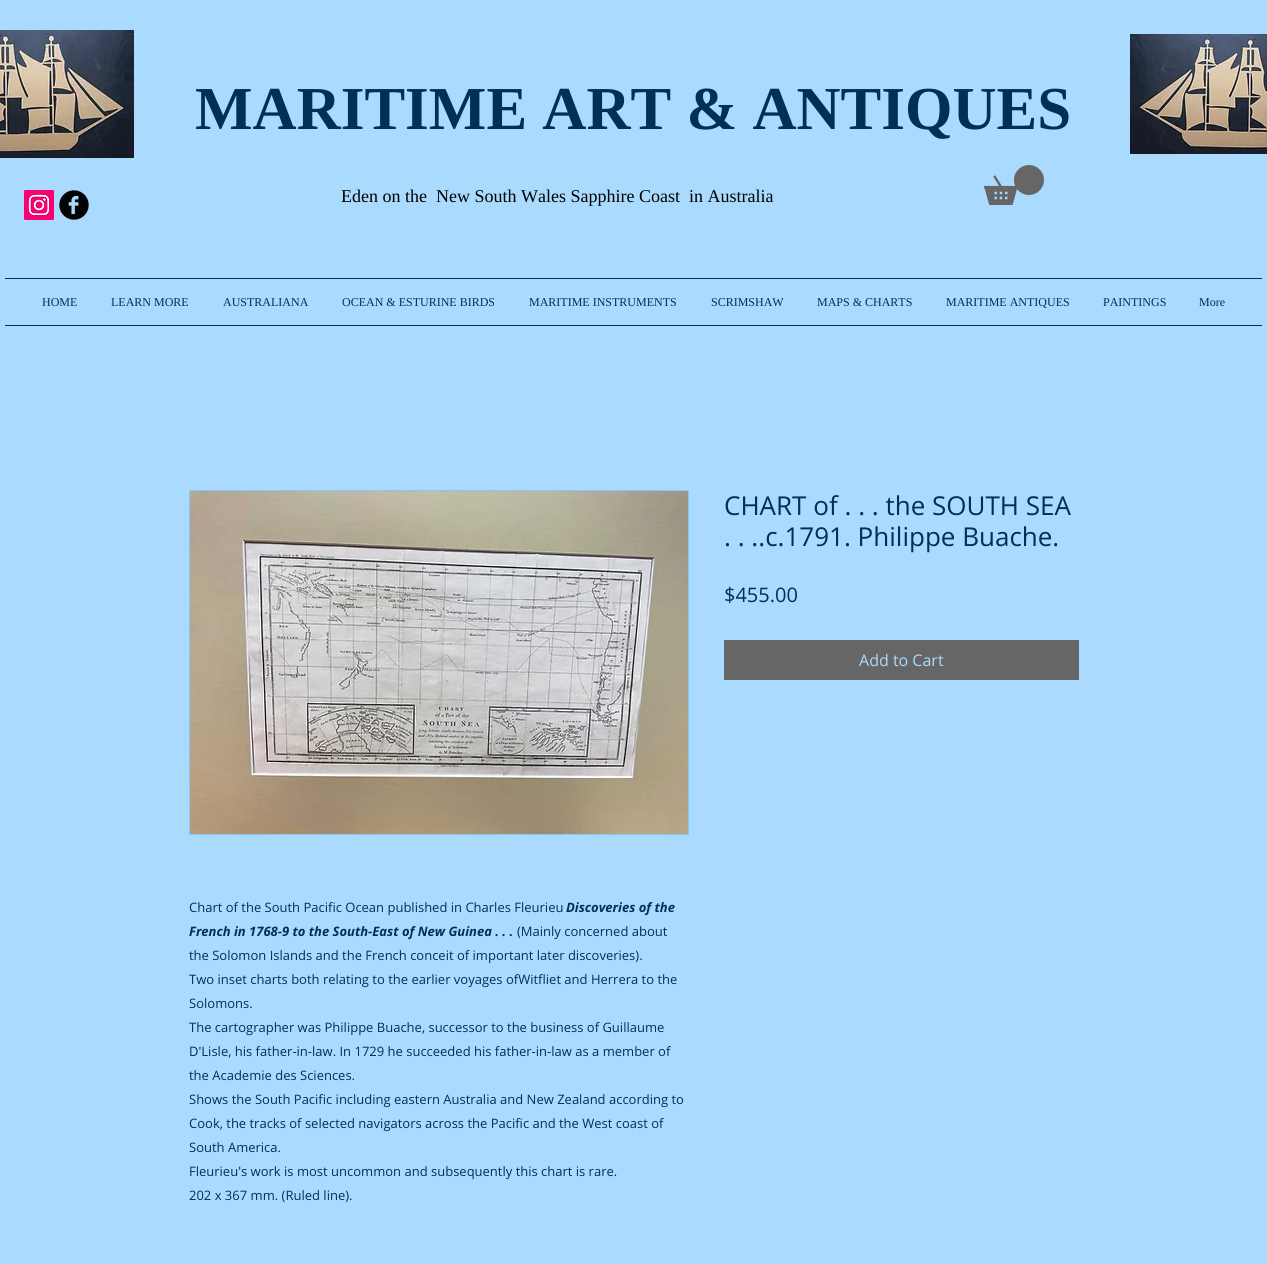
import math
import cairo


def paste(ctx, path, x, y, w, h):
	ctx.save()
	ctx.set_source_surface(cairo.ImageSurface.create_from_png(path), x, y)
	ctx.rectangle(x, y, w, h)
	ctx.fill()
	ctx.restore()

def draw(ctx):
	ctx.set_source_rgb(0.667, 0.859, 1)
	ctx.paint()
	paste(ctx, 'media/1.png', 0, 30, 134, 128)
	ctx.select_font_face('Liberation Serif', cairo.FONT_SLANT_NORMAL, cairo.FONT_WEIGHT_BOLD)
	ctx.set_font_size(61)
	ctx.set_source_rgb(0, 0.192, 0.329)
	ctx.move_to(195, 129)
	ctx.show_text('MARITIME ART & ANTIQUES')
	paste(ctx, 'media/2.png', 1130, 34, 137, 120)
	paste(ctx, 'media/3.png', 24, 190, 30, 30)
	paste(ctx, 'media/4.png', 59, 190, 30, 30)
	ctx.select_font_face('Liberation Serif')
	ctx.set_font_size(18)
	ctx.set_source_rgb(0, 0, 0)
	ctx.move_to(341, 202)
	ctx.show_text('Eden on the  New South Wales Sapphire Coast  in Australia')
	paste(ctx, 'media/5.png', 984, 165, 60, 40)
	ctx.set_source_rgb(0, 0.192, 0.329)
	ctx.rectangle(5, 278, 1257, 1)
	ctx.fill()
	ctx.rectangle(5, 325, 1257, 1)
	ctx.fill()
	ctx.set_font_size(12)
	for x, y, s in [
		(42, 306, 'HOME'),
		(111, 306, 'LEARN MORE'),
		(223, 306, 'AUSTRALIANA'),
		(342, 306, 'OCEAN & ESTURINE BIRDS'),
		(529, 306, 'MARITIME INSTRUMENTS'),
		(711, 306, 'SCRIMSHAW'),
		(817, 306, 'MAPS & CHARTS'),
		(946, 306, 'MARITIME ANTIQUES'),
		(1103, 306, 'PAINTINGS'),
		(1199, 306, 'More'),
	]:
		ctx.move_to(x, y)
		ctx.show_text(s)
	ctx.select_font_face('Open Sans')
	ctx.set_font_size(26)
	ctx.move_to(724, 515)
	ctx.show_text('CHART of . . . the SOUTH SEA')
	ctx.move_to(724, 546)
	ctx.show_text('. . ..c.1791. Philippe Buache.')
	ctx.set_font_size(20)
	ctx.move_to(724, 602)
	ctx.show_text('$455.00')
	ctx.set_source_rgb(0.4, 0.4, 0.4)
	ctx.rectangle(724, 640, 355, 40)
	ctx.fill()
	ctx.set_font_size(16)
	ctx.set_source_rgb(0.667, 0.859, 1)
	ctx.move_to(859, 666)
	ctx.show_text('Add to Cart')
	ctx.rectangle(189.5, 490.5, 499, 344)
	ctx.set_source_rgb(0.498, 0.788, 1)
	ctx.set_line_width(1)
	ctx.stroke()
	paste(ctx, 'media/6.png', 190, 491, 498, 343)
	ctx.set_font_size(13)
	ctx.set_source_rgb(0, 0.192, 0.329)
	ctx.move_to(189, 912)
	ctx.show_text('Chart of the South Pacific Ocean published in Charles Fleurieu')
	ctx.select_font_face('Open Sans', cairo.FONT_SLANT_ITALIC, cairo.FONT_WEIGHT_BOLD)
	ctx.move_to(566, 912)
	ctx.show_text('Discoveries of the')
	ctx.move_to(189, 936)
	ctx.show_text('French in 1768-9 to the South-East of New Guinea . . .')
	ctx.select_font_face('Open Sans')
	for x, y, s in [
		(517, 936, '(Mainly concerned about'),
		(189, 960, 'the Solomon Islands and the French conceit of important later discoveries).'),
		(189, 984, 'Two inset charts both relating to the earlier voyages ofWitfliet and Herrera to the'),
		(189, 1008, 'Solomons.'),
		(189, 1032, 'The cartographer was Philippe Buache, successor to the business of Guillaume'),
		(189, 1056, 'D\'Lisle, his father-in-law. In 1729 he succeeded his father-in-law as a member of'),
		(189, 1080, 'the Academie des Sciences.'),
		(189, 1104, 'Shows the South Pacific including eastern Australia and New Zealand according to'),
		(189, 1128, 'Cook, the tracks of selected navigators across the Pacific and the West coast of'),
		(189, 1152, 'South America.'),
		(189, 1176, 'Fleurieu\'s work is most uncommon and subsequently this chart is rare.'),
		(189, 1200, '202 x 367 mm. (Ruled line).'),
	]:
		ctx.move_to(x, y)
		ctx.show_text(s)


surface = cairo.ImageSurface(cairo.FORMAT_RGB24, 1267, 1264)
ctx = cairo.Context(surface)
options = cairo.FontOptions()
options.set_hint_metrics(cairo.HINT_METRICS_OFF)
options.set_hint_style(cairo.HINT_STYLE_NONE)
ctx.set_font_options(options)
ctx.set_miter_limit(4)
draw(ctx)
surface.write_to_png('image.png')
